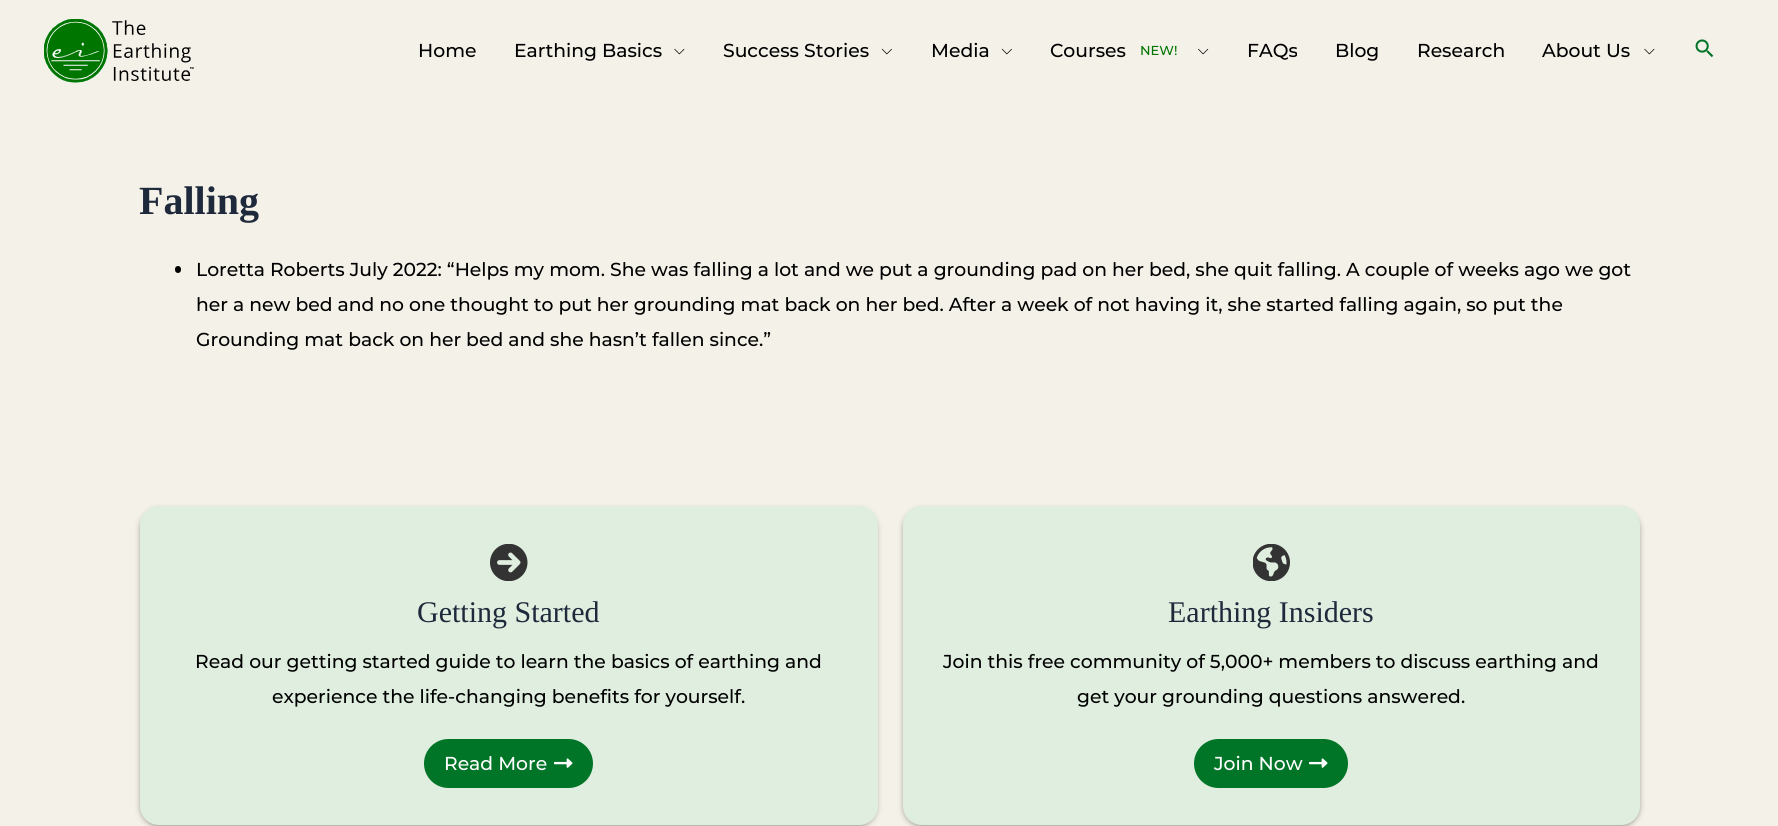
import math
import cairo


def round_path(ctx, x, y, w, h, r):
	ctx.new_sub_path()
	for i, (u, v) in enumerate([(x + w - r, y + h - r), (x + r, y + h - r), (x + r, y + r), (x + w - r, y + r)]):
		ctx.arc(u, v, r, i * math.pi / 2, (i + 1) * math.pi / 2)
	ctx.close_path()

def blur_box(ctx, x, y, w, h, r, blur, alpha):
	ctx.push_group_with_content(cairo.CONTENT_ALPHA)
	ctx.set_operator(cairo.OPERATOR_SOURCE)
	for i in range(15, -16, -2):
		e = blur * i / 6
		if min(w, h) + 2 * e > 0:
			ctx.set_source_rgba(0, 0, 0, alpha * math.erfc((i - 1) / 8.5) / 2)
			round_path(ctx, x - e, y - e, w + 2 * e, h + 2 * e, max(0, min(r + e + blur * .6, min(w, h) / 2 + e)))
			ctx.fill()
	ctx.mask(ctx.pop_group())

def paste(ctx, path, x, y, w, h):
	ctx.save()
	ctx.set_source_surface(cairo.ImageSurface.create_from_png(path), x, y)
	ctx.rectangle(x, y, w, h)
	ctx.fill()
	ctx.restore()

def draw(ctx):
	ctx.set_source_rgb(0.957, 0.945, 0.91)
	ctx.paint()
	paste(ctx, 'media/1.png', 44, 19, 150, 64)
	ctx.select_font_face('Montserrat Thin')
	ctx.set_font_size(18.75)
	ctx.set_source_rgb(0, 0, 0)
	ctx.move_to(418, 57)
	ctx.show_text('Home')
	ctx.move_to(514, 57)
	ctx.show_text('Earthing Basics')
	paste(ctx, 'media/2.png', 674, 48, 11, 7)
	ctx.move_to(723, 57)
	ctx.show_text('Success Stories')
	paste(ctx, 'media/3.png', 881, 48, 11, 7)
	ctx.move_to(931, 57)
	ctx.show_text('Media')
	paste(ctx, 'media/3.png', 1001, 48, 11, 7)
	ctx.move_to(1050, 57)
	ctx.show_text('Courses')
	ctx.set_font_size(13)
	ctx.set_source_rgb(0, 0.459, 0)
	ctx.move_to(1140, 55)
	ctx.show_text('NEW!')
	paste(ctx, 'media/4.png', 1198, 48, 11, 7)
	ctx.set_font_size(18.75)
	ctx.set_source_rgb(0, 0, 0)
	for x, y, s in [
		(1247, 57, 'FAQs'),
		(1335, 57, 'Blog'),
		(1417, 57, 'Research'),
		(1542, 57, 'About Us'),
	]:
		ctx.move_to(x, y)
		ctx.show_text(s)
	paste(ctx, 'media/2.png', 1644, 48, 11, 7)
	paste(ctx, 'media/5.png', 1695, 39, 19, 19)
	ctx.select_font_face('Liberation Serif', cairo.FONT_SLANT_NORMAL, cairo.FONT_WEIGHT_BOLD)
	ctx.set_font_size(40)
	ctx.set_source_rgb(0.118, 0.161, 0.231)
	ctx.move_to(139, 214)
	ctx.show_text('Falling')
	ctx.set_source_rgb(0, 0, 0)
	round_path(ctx, 175, 266, 6, 7, 3)
	ctx.fill()
	ctx.select_font_face('Montserrat Thin')
	ctx.set_font_size(18.75)
	for x, y, s in [
		(196, 276, 'Loretta Roberts July 2022: “Helps my mom. She was falling a lot and we put a grounding pad on her bed, she quit falling. A couple of weeks ago we got'),
		(196, 311, 'her a new bed and no one thought to put her grounding mat back on her bed. After a week of not having it, she started falling again, so put the'),
		(196, 346, 'Grounding mat back on her bed and she hasn’t fallen since.”'),
	]:
		ctx.move_to(x, y)
		ctx.show_text(s)
	ctx.set_source_rgb(0, 0, 0)
	blur_box(ctx, 141, 510, 735, 316, 18, 3, 0.44)
	ctx.set_source_rgb(0.875, 0.933, 0.875)
	round_path(ctx, 140, 506, 738, 319, 19)
	ctx.fill()
	paste(ctx, 'media/6.png', 490, 544, 38, 37)
	ctx.select_font_face('Liberation Serif')
	ctx.set_font_size(30)
	ctx.set_source_rgb(0.118, 0.161, 0.231)
	ctx.move_to(417, 622)
	ctx.show_text('Getting Started')
	ctx.select_font_face('Montserrat Thin')
	ctx.set_font_size(18.75)
	ctx.set_source_rgb(0, 0, 0)
	ctx.move_to(195, 668)
	ctx.show_text('Read our getting started guide to learn the basics of earthing and')
	ctx.move_to(272, 703)
	ctx.show_text('experience the life-changing benefits for yourself.')
	ctx.set_source_rgb(0, 0.459, 0.153)
	round_path(ctx, 424, 739, 169, 49, 24.5)
	ctx.fill()
	ctx.set_source_rgb(1, 1, 1)
	ctx.move_to(444, 770)
	ctx.show_text('Read More')
	paste(ctx, 'media/7.png', 554, 758, 19, 10)
	ctx.set_source_rgb(0, 0, 0)
	blur_box(ctx, 904, 510, 735, 316, 18, 3, 0.44)
	ctx.set_source_rgb(0.875, 0.933, 0.875)
	round_path(ctx, 903, 506, 737, 319, 19)
	ctx.fill()
	paste(ctx, 'media/8.png', 1253, 544, 37, 37)
	ctx.select_font_face('Liberation Serif')
	ctx.set_font_size(30)
	ctx.set_source_rgb(0.118, 0.161, 0.231)
	ctx.move_to(1168, 622)
	ctx.show_text('Earthing Insiders')
	ctx.select_font_face('Montserrat Thin')
	ctx.set_font_size(18.75)
	ctx.set_source_rgb(0, 0, 0)
	ctx.move_to(943, 668)
	ctx.show_text('Join this free community of 5,000+ members to discuss earthing and')
	ctx.move_to(1077, 703)
	ctx.show_text('get your grounding questions answered.')
	ctx.set_source_rgb(0, 0.459, 0.153)
	round_path(ctx, 1194, 739, 154, 49, 24.5)
	ctx.fill()
	ctx.set_source_rgb(1, 1, 1)
	ctx.move_to(1214, 770)
	ctx.show_text('Join Now')
	paste(ctx, 'media/7.png', 1309, 758, 19, 10)


surface = cairo.ImageSurface(cairo.FORMAT_RGB24, 1778, 826)
ctx = cairo.Context(surface)
options = cairo.FontOptions()
options.set_hint_metrics(cairo.HINT_METRICS_OFF)
options.set_hint_style(cairo.HINT_STYLE_NONE)
ctx.set_font_options(options)
ctx.set_miter_limit(4)
draw(ctx)
surface.write_to_png('image.png')
